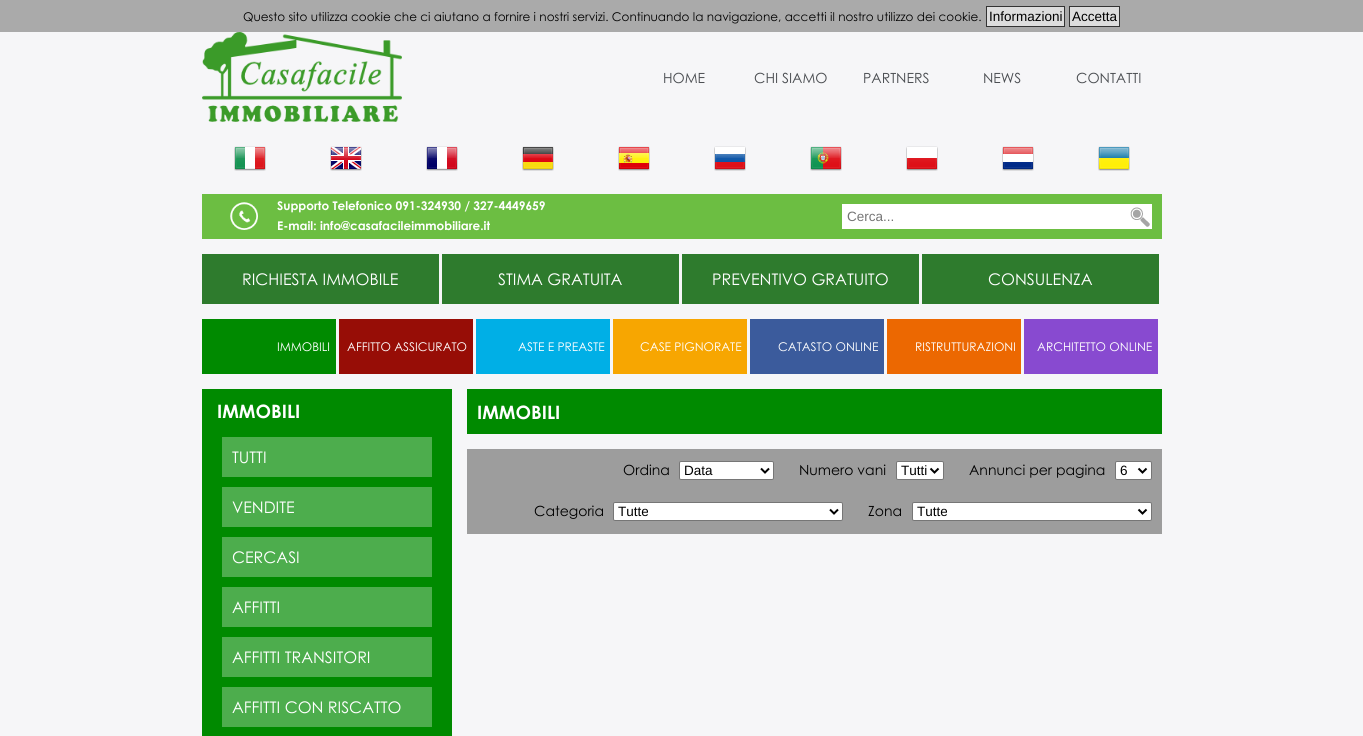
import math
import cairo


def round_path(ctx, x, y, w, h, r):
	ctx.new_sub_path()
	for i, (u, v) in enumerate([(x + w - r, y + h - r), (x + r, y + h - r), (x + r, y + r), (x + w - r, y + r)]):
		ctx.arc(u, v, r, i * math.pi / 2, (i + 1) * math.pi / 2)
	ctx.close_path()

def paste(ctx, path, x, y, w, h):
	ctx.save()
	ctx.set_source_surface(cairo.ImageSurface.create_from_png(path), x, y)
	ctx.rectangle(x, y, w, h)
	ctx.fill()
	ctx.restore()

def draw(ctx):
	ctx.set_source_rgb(0.961, 0.961, 0.969)
	ctx.paint()
	ctx.set_source_rgb(0.667, 0.667, 0.667)
	ctx.rectangle(0, 0, 1363, 32)
	ctx.fill()
	ctx.select_font_face('Century Gothic')
	ctx.set_font_size(12)
	ctx.set_source_rgb(0, 0, 0)
	ctx.move_to(243, 21)
	ctx.show_text('Questo sito utilizza cookie che ci aiutano a fornire i nostri servizi. Continuando la navigazione, accetti il nostro utilizzo dei cookie.')
	ctx.set_source_rgb(0.867, 0.867, 0.867)
	ctx.rectangle(986.5, 6.5, 78, 20)
	ctx.fill_preserve()
	ctx.set_source_rgb(0.2, 0.2, 0.2)
	ctx.set_line_width(1)
	ctx.stroke()
	ctx.select_font_face('Liberation Sans')
	ctx.set_font_size(13.5)
	ctx.set_source_rgb(0, 0, 0)
	ctx.move_to(989, 21)
	ctx.show_text('Informazioni')
	ctx.set_source_rgb(0.867, 0.867, 0.867)
	ctx.rectangle(1069.5, 6.5, 50, 20)
	ctx.fill_preserve()
	ctx.set_source_rgb(0.2, 0.2, 0.2)
	ctx.stroke()
	ctx.set_source_rgb(0, 0, 0)
	ctx.move_to(1072, 21)
	ctx.show_text('Accetta')
	paste(ctx, 'media/1.png', 202, 32, 200, 90)
	ctx.select_font_face('Century Gothic')
	ctx.set_font_size(14)
	ctx.set_source_rgb(0.29, 0.302, 0.318)
	for x, y, s in [
		(663, 83, 'HOME'),
		(754, 83, 'CHI SIAMO'),
		(863, 83, 'PARTNERS'),
		(983, 83, 'NEWS'),
		(1076, 83, 'CONTATTI'),
	]:
		ctx.move_to(x, y)
		ctx.show_text(s)
	paste(ctx, 'media/2.png', 234, 146, 32, 25)
	paste(ctx, 'media/3.png', 330, 146, 32, 25)
	paste(ctx, 'media/4.png', 426, 146, 32, 25)
	paste(ctx, 'media/5.png', 522, 146, 32, 25)
	paste(ctx, 'media/6.png', 618, 146, 32, 25)
	paste(ctx, 'media/7.png', 714, 146, 32, 25)
	paste(ctx, 'media/8.png', 810, 146, 32, 25)
	paste(ctx, 'media/9.png', 906, 146, 32, 25)
	paste(ctx, 'media/10.png', 1002, 146, 32, 25)
	paste(ctx, 'media/11.png', 1098, 146, 32, 25)
	ctx.set_source_rgb(0.424, 0.745, 0.259)
	ctx.rectangle(202, 194, 960, 45)
	ctx.fill()
	paste(ctx, 'media/12.png', 230, 202, 28, 28)
	ctx.select_font_face('Century Gothic', cairo.FONT_SLANT_NORMAL, cairo.FONT_WEIGHT_BOLD)
	ctx.set_font_size(12)
	ctx.set_source_rgb(1, 1, 1)
	ctx.move_to(277, 210)
	ctx.show_text('Supporto Telefonico 091-324930 / 327-4449659')
	ctx.move_to(277, 230)
	ctx.show_text('E-mail: info@casafacileimmobiliare.it')
	ctx.rectangle(842, 204, 310, 25)
	ctx.fill()
	ctx.select_font_face('Liberation Sans')
	ctx.set_font_size(13.5)
	ctx.set_source_rgb(0.459, 0.459, 0.459)
	ctx.move_to(847, 221)
	ctx.show_text('Cerca...')
	paste(ctx, 'media/13.png', 1130, 207, 20, 20)
	ctx.set_source_rgb(0.18, 0.482, 0.176)
	ctx.rectangle(202, 254, 237, 50)
	ctx.fill()
	ctx.select_font_face('Century Gothic')
	ctx.set_font_size(16)
	ctx.set_source_rgb(1, 1, 1)
	ctx.move_to(242, 285)
	ctx.show_text('RICHIESTA IMMOBILE')
	ctx.set_source_rgb(0.18, 0.482, 0.176)
	ctx.rectangle(442, 254, 237, 50)
	ctx.fill()
	ctx.set_source_rgb(1, 1, 1)
	ctx.move_to(498, 285)
	ctx.show_text('STIMA GRATUITA')
	ctx.set_source_rgb(0.18, 0.482, 0.176)
	ctx.rectangle(682, 254, 237, 50)
	ctx.fill()
	ctx.set_source_rgb(1, 1, 1)
	ctx.move_to(712, 285)
	ctx.show_text('PREVENTIVO GRATUITO')
	ctx.set_source_rgb(0.18, 0.482, 0.176)
	ctx.rectangle(922, 254, 237, 50)
	ctx.fill()
	ctx.set_source_rgb(1, 1, 1)
	ctx.move_to(988, 285)
	ctx.show_text('CONSULENZA')
	ctx.set_source_rgb(0, 0.541, 0)
	ctx.rectangle(202, 319, 134, 55)
	ctx.fill()
	ctx.set_font_size(12)
	ctx.set_source_rgb(1, 1, 1)
	ctx.move_to(277, 351)
	ctx.show_text('IMMOBILI')
	ctx.set_source_rgb(0.592, 0.051, 0.024)
	ctx.rectangle(339, 319, 134, 55)
	ctx.fill()
	ctx.set_source_rgb(1, 1, 1)
	ctx.move_to(347, 351)
	ctx.show_text('AFFITTO ASSICURATO')
	ctx.set_source_rgb(0, 0.686, 0.902)
	ctx.rectangle(476, 319, 134, 55)
	ctx.fill()
	ctx.set_source_rgb(1, 1, 1)
	ctx.move_to(518, 351)
	ctx.show_text('ASTE E PREASTE')
	ctx.set_source_rgb(0.965, 0.651, 0.004)
	ctx.rectangle(613, 319, 134, 55)
	ctx.fill()
	ctx.set_source_rgb(1, 1, 1)
	ctx.move_to(640, 351)
	ctx.show_text('CASE PIGNORATE')
	ctx.set_source_rgb(0.231, 0.357, 0.612)
	ctx.rectangle(750, 319, 134, 55)
	ctx.fill()
	ctx.set_source_rgb(1, 1, 1)
	ctx.move_to(778, 351)
	ctx.show_text('CATASTO ONLINE')
	ctx.set_source_rgb(0.922, 0.408, 0.004)
	ctx.rectangle(887, 319, 134, 55)
	ctx.fill()
	ctx.set_source_rgb(1, 1, 1)
	ctx.move_to(915, 351)
	ctx.show_text('RISTRUTTURAZIONI')
	ctx.set_source_rgb(0.533, 0.29, 0.816)
	ctx.rectangle(1024, 319, 134, 55)
	ctx.fill()
	ctx.set_source_rgb(1, 1, 1)
	ctx.move_to(1037, 351)
	ctx.show_text('ARCHITETTO ONLINE')
	ctx.set_source_rgb(0, 0.541, 0)
	ctx.rectangle(202, 389, 250, 347)
	ctx.fill()
	ctx.select_font_face('Century Gothic', cairo.FONT_SLANT_NORMAL, cairo.FONT_WEIGHT_BOLD)
	ctx.set_font_size(18.5)
	ctx.set_source_rgb(1, 1, 1)
	ctx.move_to(217, 418)
	ctx.show_text('IMMOBILI')
	ctx.set_source_rgb(0.302, 0.678, 0.302)
	ctx.rectangle(222, 437, 210, 40)
	ctx.fill()
	ctx.select_font_face('Century Gothic')
	ctx.set_font_size(16)
	ctx.set_source_rgb(1, 1, 1)
	ctx.move_to(232, 463)
	ctx.show_text('TUTTI')
	ctx.set_source_rgb(0.302, 0.678, 0.302)
	ctx.rectangle(222, 487, 210, 40)
	ctx.fill()
	ctx.set_source_rgb(1, 1, 1)
	ctx.move_to(232, 513)
	ctx.show_text('VENDITE')
	ctx.set_source_rgb(0.302, 0.678, 0.302)
	ctx.rectangle(222, 537, 210, 40)
	ctx.fill()
	ctx.set_source_rgb(1, 1, 1)
	ctx.move_to(232, 563)
	ctx.show_text('CERCASI')
	ctx.set_source_rgb(0.302, 0.678, 0.302)
	ctx.rectangle(222, 587, 210, 40)
	ctx.fill()
	ctx.set_source_rgb(1, 1, 1)
	ctx.move_to(232, 613)
	ctx.show_text('AFFITTI')
	ctx.set_source_rgb(0.302, 0.678, 0.302)
	ctx.rectangle(222, 637, 210, 40)
	ctx.fill()
	ctx.set_source_rgb(1, 1, 1)
	ctx.move_to(232, 663)
	ctx.show_text('AFFITTI TRANSITORI')
	ctx.set_source_rgb(0.302, 0.678, 0.302)
	ctx.rectangle(222, 687, 210, 40)
	ctx.fill()
	ctx.set_source_rgb(1, 1, 1)
	ctx.move_to(232, 713)
	ctx.show_text('AFFITTI CON RISCATTO')
	ctx.set_source_rgb(0, 0.541, 0)
	ctx.rectangle(467, 389, 695, 45)
	ctx.fill()
	ctx.select_font_face('Century Gothic', cairo.FONT_SLANT_NORMAL, cairo.FONT_WEIGHT_BOLD)
	ctx.set_font_size(18.5)
	ctx.set_source_rgb(1, 1, 1)
	ctx.move_to(477, 419)
	ctx.show_text('IMMOBILI')
	ctx.set_source_rgb(0.616, 0.616, 0.616)
	ctx.rectangle(467, 449, 695, 85)
	ctx.fill()
	ctx.select_font_face('Century Gothic')
	ctx.set_font_size(14)
	ctx.set_source_rgb(0, 0, 0)
	ctx.move_to(623, 475)
	ctx.show_text('Ordina')
	ctx.set_source_rgb(1, 1, 1)
	round_path(ctx, 679.5, 461.5, 94, 18, 1.5)
	ctx.fill_preserve()
	ctx.set_source_rgb(0.463, 0.463, 0.463)
	ctx.stroke()
	ctx.new_path()
	ctx.move_to(761, 468.5)
	ctx.line_to(765, 472.5)
	ctx.line_to(769, 468.5)
	ctx.set_source_rgb(0, 0, 0)
	ctx.set_line_width(2)
	ctx.stroke()
	ctx.select_font_face('Liberation Sans')
	ctx.set_font_size(13.5)
	ctx.move_to(684, 475)
	ctx.show_text('Data')
	ctx.select_font_face('Century Gothic')
	ctx.set_font_size(14)
	ctx.move_to(799, 475)
	ctx.show_text('Numero vani')
	ctx.set_source_rgb(1, 1, 1)
	round_path(ctx, 896.5, 461.5, 47, 18, 1.5)
	ctx.fill_preserve()
	ctx.set_source_rgb(0.463, 0.463, 0.463)
	ctx.set_line_width(1)
	ctx.stroke()
	ctx.new_path()
	ctx.move_to(930.5, 468.5)
	ctx.line_to(934.5, 472.5)
	ctx.line_to(938.5, 468.5)
	ctx.set_source_rgb(0, 0, 0)
	ctx.set_line_width(2)
	ctx.stroke()
	ctx.select_font_face('Liberation Sans')
	ctx.set_font_size(13.5)
	ctx.move_to(901, 475)
	ctx.show_text('Tutti')
	ctx.select_font_face('Century Gothic')
	ctx.set_font_size(14)
	ctx.move_to(969, 475)
	ctx.show_text('Annunci per pagina')
	ctx.set_source_rgb(1, 1, 1)
	round_path(ctx, 1115.5, 461.5, 36, 18, 1.5)
	ctx.fill_preserve()
	ctx.set_source_rgb(0.463, 0.463, 0.463)
	ctx.set_line_width(1)
	ctx.stroke()
	ctx.new_path()
	ctx.move_to(1138.5, 468.5)
	ctx.line_to(1142.5, 472.5)
	ctx.line_to(1146.5, 468.5)
	ctx.set_source_rgb(0, 0, 0)
	ctx.set_line_width(2)
	ctx.stroke()
	ctx.select_font_face('Liberation Sans')
	ctx.set_font_size(13.5)
	ctx.move_to(1120, 475)
	ctx.show_text('6')
	ctx.select_font_face('Century Gothic')
	ctx.set_font_size(14)
	ctx.move_to(534, 516)
	ctx.show_text('Categoria')
	ctx.set_source_rgb(1, 1, 1)
	round_path(ctx, 613.5, 502.5, 229, 18, 1.5)
	ctx.fill_preserve()
	ctx.set_source_rgb(0.463, 0.463, 0.463)
	ctx.set_line_width(1)
	ctx.stroke()
	ctx.new_path()
	ctx.move_to(830, 509.5)
	ctx.line_to(834, 513.5)
	ctx.line_to(838, 509.5)
	ctx.set_source_rgb(0, 0, 0)
	ctx.set_line_width(2)
	ctx.stroke()
	ctx.select_font_face('Liberation Sans')
	ctx.set_font_size(13.5)
	ctx.move_to(618, 516)
	ctx.show_text('Tutte')
	ctx.select_font_face('Century Gothic')
	ctx.set_font_size(14)
	ctx.move_to(868, 516)
	ctx.show_text('Zona')
	ctx.set_source_rgb(1, 1, 1)
	round_path(ctx, 912.5, 502.5, 239, 18, 1.5)
	ctx.fill_preserve()
	ctx.set_source_rgb(0.463, 0.463, 0.463)
	ctx.set_line_width(1)
	ctx.stroke()
	ctx.new_path()
	ctx.move_to(1138.5, 509.5)
	ctx.line_to(1142.5, 513.5)
	ctx.line_to(1146.5, 509.5)
	ctx.set_source_rgb(0, 0, 0)
	ctx.set_line_width(2)
	ctx.stroke()
	ctx.select_font_face('Liberation Sans')
	ctx.set_font_size(13.5)
	ctx.move_to(917, 516)
	ctx.show_text('Tutte')


surface = cairo.ImageSurface(cairo.FORMAT_RGB24, 1363, 736)
ctx = cairo.Context(surface)
options = cairo.FontOptions()
options.set_hint_metrics(cairo.HINT_METRICS_OFF)
options.set_hint_style(cairo.HINT_STYLE_NONE)
ctx.set_font_options(options)
ctx.set_miter_limit(4)
draw(ctx)
surface.write_to_png('image.png')
